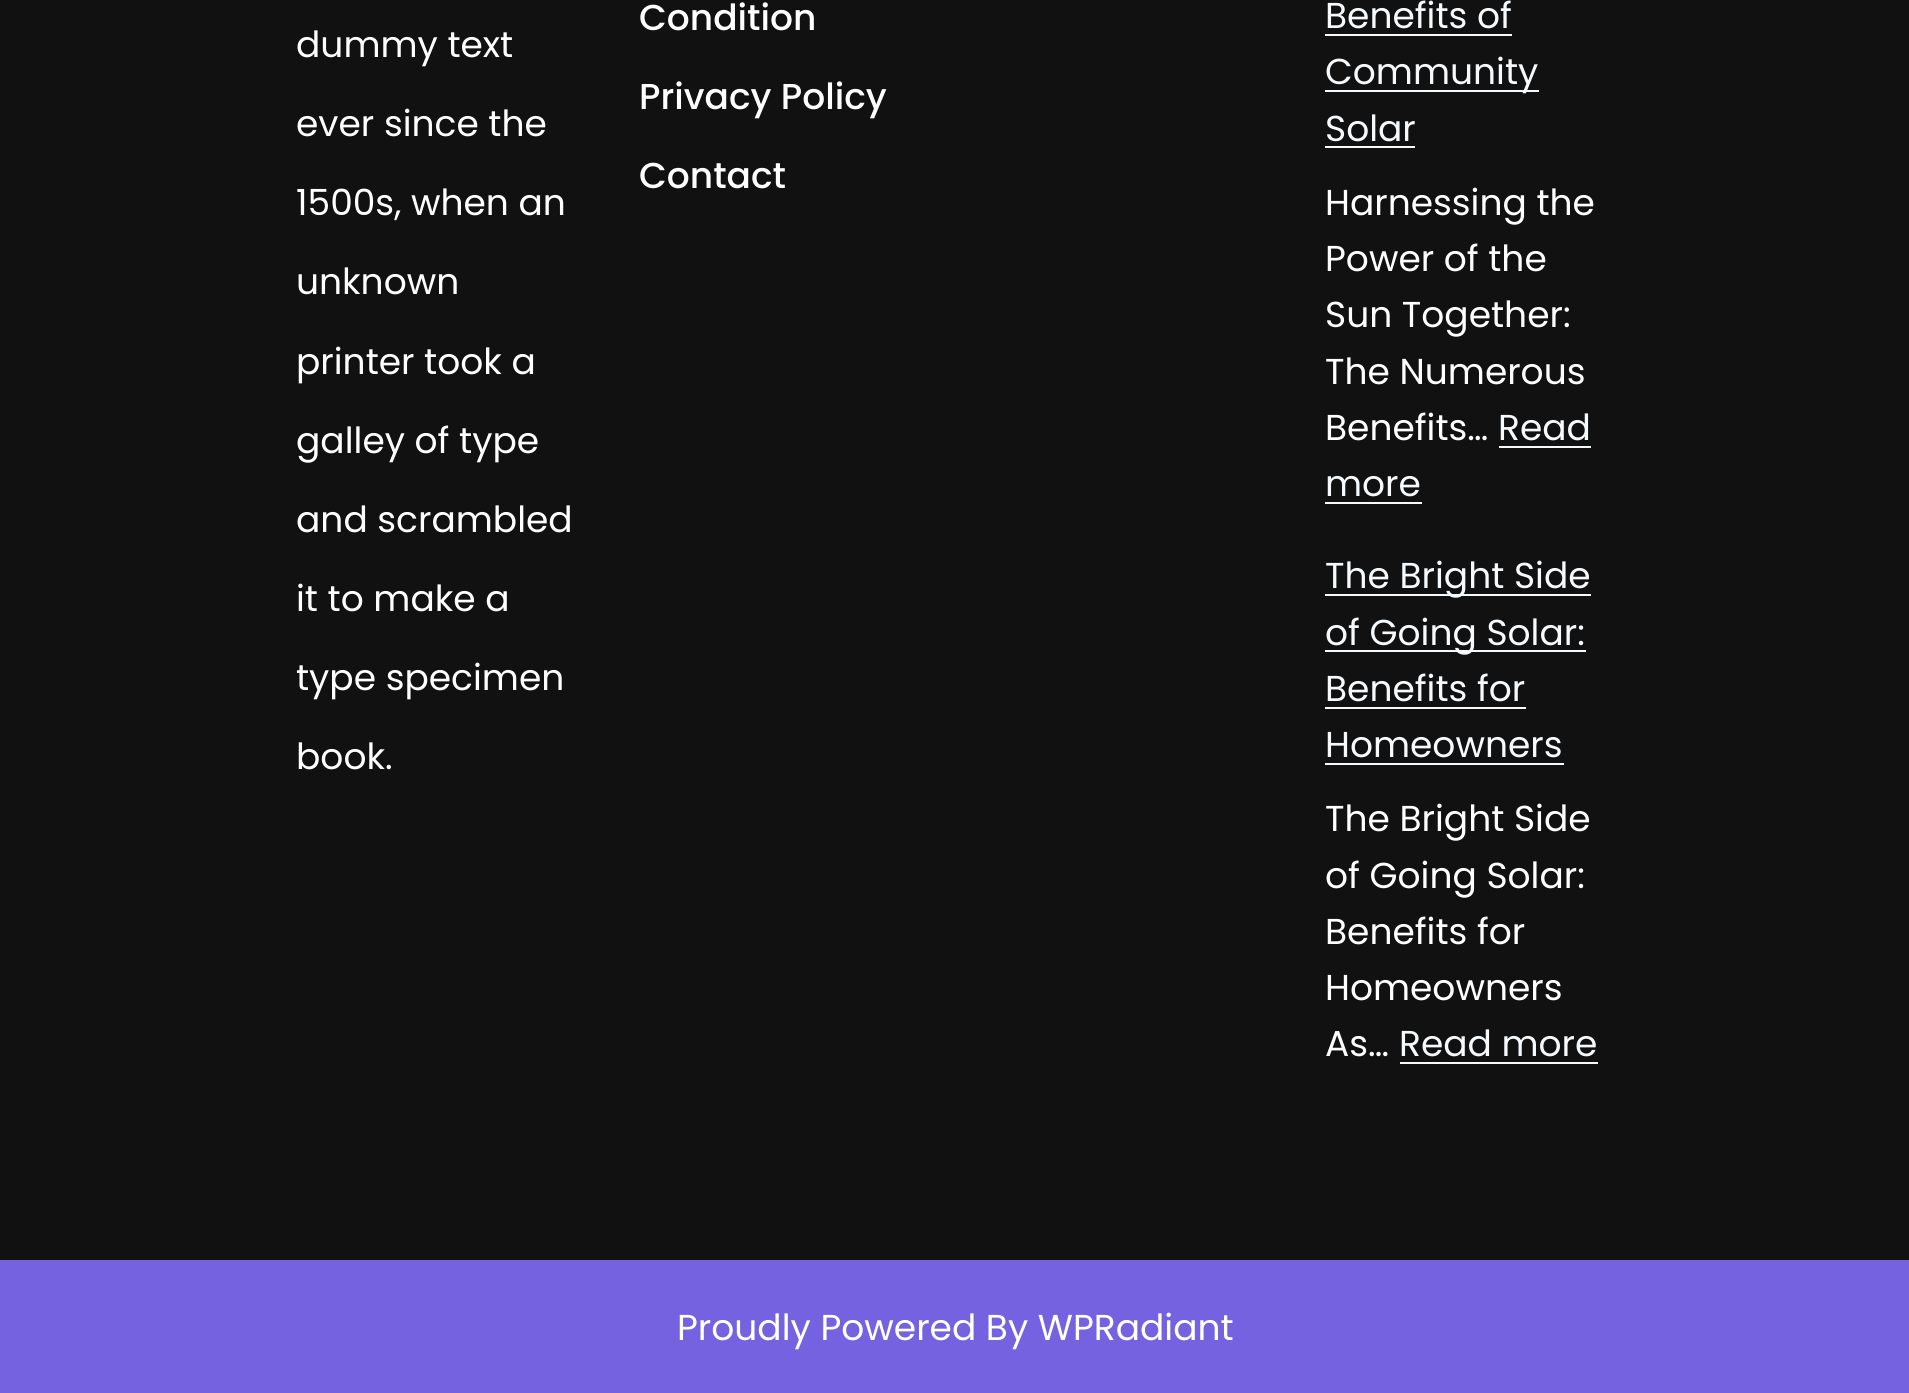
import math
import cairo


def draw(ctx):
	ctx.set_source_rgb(0.067, 0.067, 0.067)
	ctx.paint()
	ctx.select_font_face('Poppins')
	ctx.set_font_size(36)
	ctx.set_source_rgb(1, 1, 1)
	for x, y, s in [
		(296, 57, 'dummy text'),
		(296, 136, 'ever since the'),
		(296, 215, '1500s, when an'),
		(296, 294, 'unknown'),
		(296, 374, 'printer took a'),
		(296, 453, 'galley of type'),
		(296, 532, 'and scrambled'),
		(296, 611, 'it to make a'),
		(296, 690, 'type specimen'),
		(296, 769, 'book.'),
	]:
		ctx.move_to(x, y)
		ctx.show_text(s)
	ctx.select_font_face('Poppins Medium')
	for x, y, s in [
		(639, 30, 'Condition'),
		(639, 109, 'Privacy Policy'),
		(639, 188, 'Contact'),
	]:
		ctx.move_to(x, y)
		ctx.show_text(s)
	ctx.select_font_face('Poppins')
	ctx.set_source_rgb(0.961, 0.98, 0.992)
	ctx.move_to(1325, 28)
	ctx.show_text('Benefits of')
	ctx.rectangle(1325, 34, 187, 2)
	ctx.fill()
	ctx.rectangle(1325, 90, 214, 2)
	ctx.fill()
	ctx.move_to(1325, 84)
	ctx.show_text('Community')
	ctx.move_to(1325, 141)
	ctx.show_text('Solar')
	ctx.rectangle(1325, 146, 90, 2)
	ctx.fill()
	ctx.set_source_rgb(1, 1, 1)
	for x, y, s in [
		(1325, 215, 'Harnessing the'),
		(1325, 271, 'Power of the'),
		(1325, 327, 'Sun Together:'),
		(1325, 384, 'The Numerous'),
		(1325, 440, 'Benefits…'),
	]:
		ctx.move_to(x, y)
		ctx.show_text(s)
	ctx.set_source_rgb(0.961, 0.98, 0.992)
	ctx.move_to(1498, 440)
	ctx.show_text('Read')
	ctx.rectangle(1499, 446, 92, 2)
	ctx.fill()
	ctx.move_to(1325, 496)
	ctx.show_text('more')
	ctx.rectangle(1325, 502, 97, 2)
	ctx.fill()
	ctx.rectangle(1325, 594, 266, 2)
	ctx.fill()
	ctx.move_to(1325, 588)
	ctx.show_text('The Bright Side')
	ctx.rectangle(1325, 650, 261, 2)
	ctx.fill()
	ctx.move_to(1325, 645)
	ctx.show_text('of Going Solar:')
	ctx.move_to(1325, 701)
	ctx.show_text('Benefits for')
	ctx.rectangle(1325, 707, 201, 2)
	ctx.fill()
	ctx.move_to(1325, 757)
	ctx.show_text('Homeowners')
	ctx.rectangle(1325, 763, 239, 2)
	ctx.fill()
	ctx.set_source_rgb(1, 1, 1)
	for x, y, s in [
		(1325, 831, 'The Bright Side'),
		(1325, 888, 'of Going Solar:'),
		(1325, 944, 'Benefits for'),
		(1325, 1000, 'Homeowners'),
		(1325, 1056, 'As…'),
	]:
		ctx.move_to(x, y)
		ctx.show_text(s)
	ctx.set_source_rgb(0.961, 0.98, 0.992)
	ctx.move_to(1399, 1056)
	ctx.show_text('Read more')
	ctx.rectangle(1400, 1062, 198, 2)
	ctx.fill()
	ctx.set_source_rgb(0.459, 0.384, 0.878)
	ctx.rectangle(0, 1260, 1909, 133)
	ctx.fill()
	ctx.set_source_rgb(1, 1, 1)
	ctx.move_to(677, 1340)
	ctx.show_text('Proudly Powered By WPRadiant')


surface = cairo.ImageSurface(cairo.FORMAT_RGB24, 1909, 1393)
ctx = cairo.Context(surface)
options = cairo.FontOptions()
options.set_hint_metrics(cairo.HINT_METRICS_OFF)
options.set_hint_style(cairo.HINT_STYLE_NONE)
ctx.set_font_options(options)
ctx.set_miter_limit(4)
draw(ctx)
surface.write_to_png('image.png')
